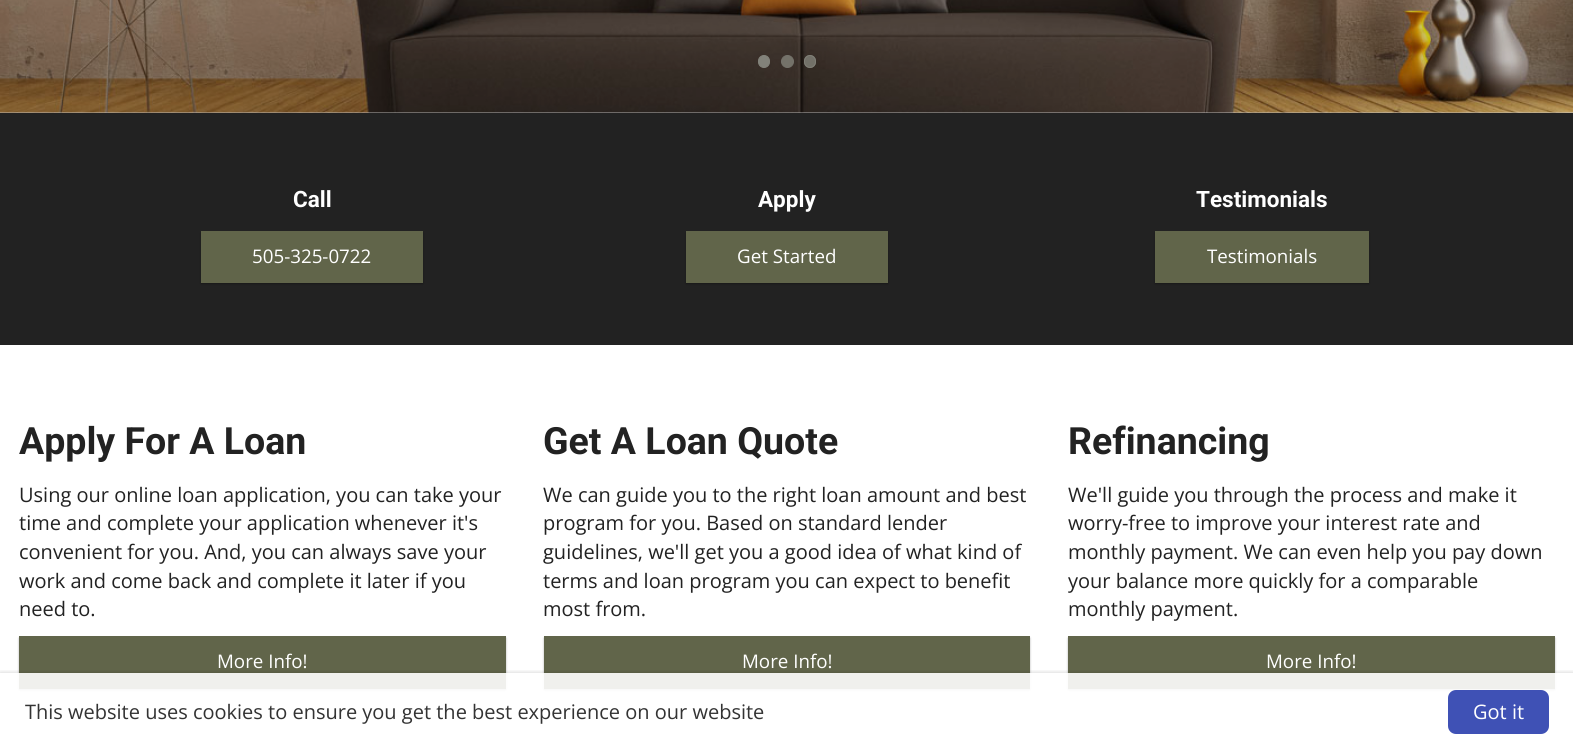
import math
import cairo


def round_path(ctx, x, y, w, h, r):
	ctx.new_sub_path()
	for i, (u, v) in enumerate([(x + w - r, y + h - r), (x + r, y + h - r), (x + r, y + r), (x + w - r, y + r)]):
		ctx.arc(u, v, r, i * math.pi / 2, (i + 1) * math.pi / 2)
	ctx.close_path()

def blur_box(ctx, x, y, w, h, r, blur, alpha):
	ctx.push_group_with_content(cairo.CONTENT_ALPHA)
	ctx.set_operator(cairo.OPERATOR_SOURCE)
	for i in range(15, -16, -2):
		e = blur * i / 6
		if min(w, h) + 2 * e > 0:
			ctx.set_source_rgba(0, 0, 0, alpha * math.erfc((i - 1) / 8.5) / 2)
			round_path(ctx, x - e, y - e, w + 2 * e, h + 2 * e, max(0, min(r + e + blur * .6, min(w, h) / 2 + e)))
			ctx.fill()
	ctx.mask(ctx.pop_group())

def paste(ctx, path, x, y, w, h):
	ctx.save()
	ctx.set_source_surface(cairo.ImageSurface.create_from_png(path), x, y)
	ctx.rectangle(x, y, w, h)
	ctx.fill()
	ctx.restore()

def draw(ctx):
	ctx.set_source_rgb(1, 1, 1)
	ctx.paint()
	ctx.set_source_rgb(0.788, 0.788, 0.788)
	ctx.rectangle(0, 112, 1573, 1)
	ctx.fill()
	paste(ctx, 'media/1.png', 0, 0, 1573, 113)
	ctx.set_source_rgb(0.51, 0.51, 0.478)
	round_path(ctx, 758.5, 55.5, 11, 12, 5.5)
	ctx.fill_preserve()
	ctx.set_line_width(1)
	ctx.stroke()
	ctx.set_source_rgba(0.51, 0.51, 0.478, 0.8)
	ctx.arc(787.5, 61.5, 6, 0, 2 * math.pi)
	ctx.fill_preserve()
	ctx.set_source_rgb(0.455, 0.447, 0.416)
	ctx.stroke()
	ctx.set_source_rgba(0.51, 0.51, 0.478, 0.8)
	round_path(ctx, 804, 55, 12, 13, 6)
	ctx.fill()
	round_path(ctx, 804.5, 55.5, 11, 12, 5.5)
	ctx.stroke()
	ctx.set_source_rgb(0.133, 0.133, 0.133)
	ctx.rectangle(0, 113, 1573, 232)
	ctx.fill()
	ctx.select_font_face('Roboto', cairo.FONT_SLANT_NORMAL, cairo.FONT_WEIGHT_BOLD)
	ctx.set_font_size(22.5)
	ctx.set_source_rgb(1, 1, 1)
	ctx.move_to(293, 207)
	ctx.show_text('Call')
	ctx.set_source_rgb(0, 0, 0)
	blur_box(ctx, 201, 233, 222, 51, 0, 1, 0.3)
	ctx.set_source_rgb(0.38, 0.396, 0.29)
	ctx.rectangle(201, 231, 222, 52)
	ctx.fill()
	ctx.select_font_face('Open Sans')
	ctx.set_font_size(18.75)
	ctx.set_source_rgb(1, 1, 1)
	ctx.move_to(252, 263)
	ctx.show_text('505-325-0722')
	ctx.select_font_face('Roboto', cairo.FONT_SLANT_NORMAL, cairo.FONT_WEIGHT_BOLD)
	ctx.set_font_size(22.5)
	ctx.move_to(758, 207)
	ctx.show_text('Apply')
	ctx.set_source_rgb(0, 0, 0)
	blur_box(ctx, 686, 233, 202, 51, 0, 1, 0.3)
	ctx.set_source_rgb(0.38, 0.396, 0.29)
	ctx.rectangle(686, 231, 202, 52)
	ctx.fill()
	ctx.select_font_face('Open Sans')
	ctx.set_font_size(18.75)
	ctx.set_source_rgb(1, 1, 1)
	ctx.move_to(737, 263)
	ctx.show_text('Get Started')
	ctx.select_font_face('Roboto', cairo.FONT_SLANT_NORMAL, cairo.FONT_WEIGHT_BOLD)
	ctx.set_font_size(22.5)
	ctx.move_to(1196, 207)
	ctx.show_text('Testimonials')
	ctx.set_source_rgb(0, 0, 0)
	blur_box(ctx, 1155, 233, 214, 51, 0, 1, 0.3)
	ctx.set_source_rgb(0.38, 0.396, 0.29)
	ctx.rectangle(1155, 231, 214, 52)
	ctx.fill()
	ctx.select_font_face('Open Sans')
	ctx.set_font_size(18.75)
	ctx.set_source_rgb(1, 1, 1)
	ctx.move_to(1207, 263)
	ctx.show_text('Testimonials')
	ctx.select_font_face('Roboto', cairo.FONT_SLANT_NORMAL, cairo.FONT_WEIGHT_BOLD)
	ctx.set_font_size(37.5)
	ctx.set_source_rgb(0.133, 0.133, 0.133)
	ctx.move_to(19, 454)
	ctx.show_text('Apply For A Loan')
	ctx.select_font_face('Open Sans')
	ctx.set_font_size(20)
	for x, y, s in [
		(19, 502, 'Using our online loan application, you can take your'),
		(19, 530, 'time and complete your application whenever it\'s'),
		(19, 559, 'convenient for you. And, you can always save your'),
		(19, 588, 'work and come back and complete it later if you'),
		(19, 616, 'need to.'),
	]:
		ctx.move_to(x, y)
		ctx.show_text(s)
	ctx.set_source_rgb(0, 0, 0)
	blur_box(ctx, 19, 638, 487, 52, 0, 1, 0.3)
	ctx.set_source_rgb(0.38, 0.396, 0.29)
	ctx.rectangle(19, 636, 487, 53)
	ctx.fill()
	ctx.set_font_size(18.75)
	ctx.set_source_rgb(1, 1, 1)
	ctx.move_to(217, 668)
	ctx.show_text('More Info!')
	ctx.select_font_face('Roboto', cairo.FONT_SLANT_NORMAL, cairo.FONT_WEIGHT_BOLD)
	ctx.set_font_size(37.5)
	ctx.set_source_rgb(0.133, 0.133, 0.133)
	ctx.move_to(543, 454)
	ctx.show_text('Get A Loan Quote')
	ctx.select_font_face('Open Sans')
	ctx.set_font_size(20)
	for x, y, s in [
		(543, 502, 'We can guide you to the right loan amount and best'),
		(543, 530, 'program for you. Based on standard lender'),
		(543, 559, 'guidelines, we\'ll get you a good idea of what kind of'),
		(543, 588, 'terms and loan program you can expect to benefit'),
		(543, 616, 'most from.'),
	]:
		ctx.move_to(x, y)
		ctx.show_text(s)
	ctx.set_source_rgb(0, 0, 0)
	blur_box(ctx, 544, 638, 486, 52, 0, 1, 0.3)
	ctx.set_source_rgb(0.38, 0.396, 0.29)
	ctx.rectangle(544, 636, 486, 53)
	ctx.fill()
	ctx.set_font_size(18.75)
	ctx.set_source_rgb(1, 1, 1)
	ctx.move_to(742, 668)
	ctx.show_text('More Info!')
	ctx.select_font_face('Roboto', cairo.FONT_SLANT_NORMAL, cairo.FONT_WEIGHT_BOLD)
	ctx.set_font_size(37.5)
	ctx.set_source_rgb(0.133, 0.133, 0.133)
	ctx.move_to(1068, 454)
	ctx.show_text('Refinancing')
	ctx.select_font_face('Open Sans')
	ctx.set_font_size(20)
	for x, y, s in [
		(1068, 502, 'We\'ll guide you through the process and make it'),
		(1068, 530, 'worry-free to improve your interest rate and'),
		(1068, 559, 'monthly payment. We can even help you pay down'),
		(1068, 588, 'your balance more quickly for a comparable'),
		(1068, 616, 'monthly payment.'),
	]:
		ctx.move_to(x, y)
		ctx.show_text(s)
	ctx.set_source_rgb(0, 0, 0)
	blur_box(ctx, 1068, 638, 487, 52, 0, 1, 0.3)
	ctx.set_source_rgb(0.38, 0.396, 0.29)
	ctx.rectangle(1068, 636, 487, 53)
	ctx.fill()
	ctx.set_font_size(18.75)
	ctx.set_source_rgb(1, 1, 1)
	ctx.move_to(1266, 668)
	ctx.show_text('More Info!')
	ctx.save()
	ctx.rectangle(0, 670, 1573, 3)
	ctx.clip()
	ctx.set_source_rgb(0, 0, 0)
	blur_box(ctx, 0, 673, 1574, 78, 0, 2.5, 0.2)
	ctx.restore()
	ctx.set_source_rgba(1, 1, 1, 0.9)
	ctx.rectangle(17, 673, 1540, 19)
	ctx.fill()
	ctx.set_font_size(20)
	ctx.set_source_rgb(0.2, 0.2, 0.2)
	ctx.move_to(25, 719)
	ctx.show_text('This website uses cookies to ensure you get the best experience on our website')
	ctx.set_source_rgb(0.247, 0.318, 0.71)
	round_path(ctx, 1448, 690, 101, 44, 8)
	ctx.fill()
	ctx.set_source_rgb(1, 1, 1)
	ctx.move_to(1473, 719)
	ctx.show_text('Got it')


surface = cairo.ImageSurface(cairo.FORMAT_RGB24, 1573, 751)
ctx = cairo.Context(surface)
options = cairo.FontOptions()
options.set_hint_metrics(cairo.HINT_METRICS_OFF)
options.set_hint_style(cairo.HINT_STYLE_NONE)
ctx.set_font_options(options)
ctx.set_miter_limit(4)
draw(ctx)
surface.write_to_png('image.png')
